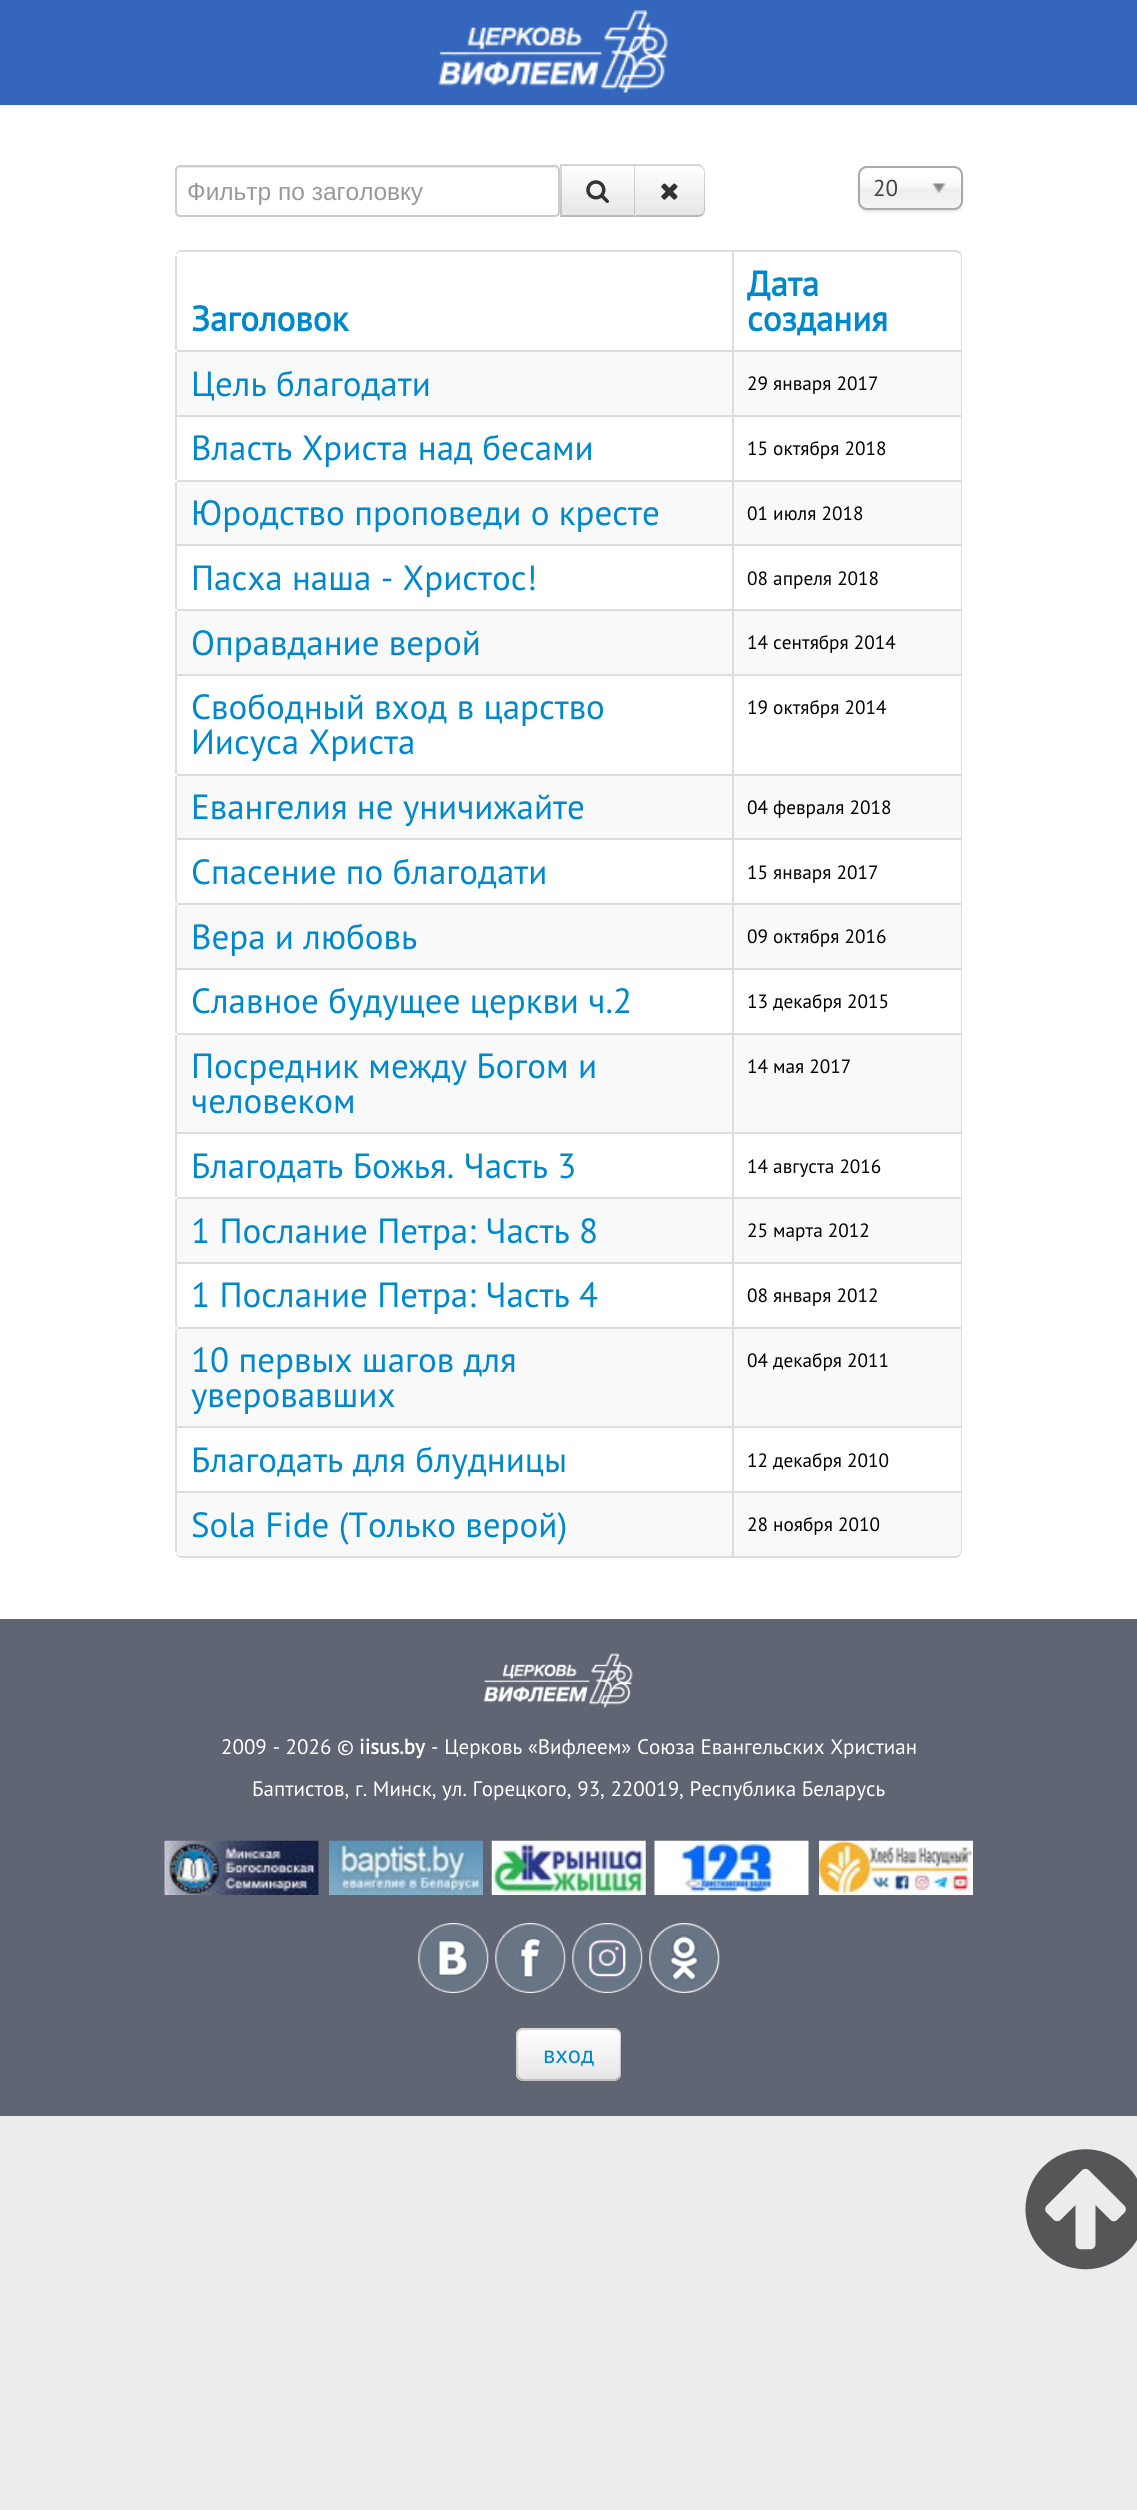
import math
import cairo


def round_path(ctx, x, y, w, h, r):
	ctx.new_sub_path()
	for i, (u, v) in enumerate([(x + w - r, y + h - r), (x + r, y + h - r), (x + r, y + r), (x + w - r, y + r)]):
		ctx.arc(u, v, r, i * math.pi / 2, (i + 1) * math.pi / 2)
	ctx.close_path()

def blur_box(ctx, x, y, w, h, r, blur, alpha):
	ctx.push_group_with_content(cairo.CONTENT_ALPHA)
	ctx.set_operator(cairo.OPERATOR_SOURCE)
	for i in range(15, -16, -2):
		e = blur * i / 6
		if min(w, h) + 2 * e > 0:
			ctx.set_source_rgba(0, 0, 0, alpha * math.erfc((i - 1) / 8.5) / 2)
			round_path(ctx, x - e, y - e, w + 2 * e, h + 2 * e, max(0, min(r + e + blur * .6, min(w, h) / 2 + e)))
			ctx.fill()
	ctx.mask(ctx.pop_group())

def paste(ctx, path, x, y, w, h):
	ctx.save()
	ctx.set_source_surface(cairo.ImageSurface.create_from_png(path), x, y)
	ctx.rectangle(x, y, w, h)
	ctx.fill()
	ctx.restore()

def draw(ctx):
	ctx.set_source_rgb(0.925, 0.925, 0.925)
	ctx.paint()
	ctx.set_source_rgb(1, 1, 1)
	ctx.rectangle(0, 105, 1137, 1514)
	ctx.fill()
	ctx.set_source_rgb(0.2, 0.4, 0.737)
	ctx.rectangle(0, 0, 1137, 105)
	ctx.fill()
	paste(ctx, 'media/1.png', 438, 10, 230, 83)
	ctx.set_source_rgb(0.925, 0.925, 0.925)
	ctx.new_path()
	ctx.move_to(180, 168)
	ctx.line_to(555, 168)
	ctx.curve_to(557, 168, 558, 170, 558, 172)
	ctx.line_to(558, 170)
	ctx.curve_to(558, 168, 556, 166, 554, 166)
	ctx.line_to(181, 166)
	ctx.curve_to(179, 166, 177, 168, 177, 170)
	ctx.line_to(177, 172)
	ctx.curve_to(177, 170, 178, 168, 180, 168)
	ctx.close_path()
	ctx.fill()
	round_path(ctx, 176, 166, 383, 50, 4)
	ctx.set_source_rgb(0.8, 0.8, 0.8)
	ctx.stroke()
	ctx.select_font_face('Liberation Sans')
	ctx.set_font_size(24.5)
	ctx.set_source_rgb(0.6, 0.6, 0.6)
	ctx.move_to(187, 200)
	ctx.show_text('Фильтр по заголовку')
	ctx.set_source_rgb(0.961, 0.961, 0.961)
	ctx.rectangle(560, 165, 74, 52)
	ctx.fill()
	gradient = cairo.LinearGradient(598, 166, 598, 215)
	gradient.add_color_stop_rgba(0, 1, 1, 1, 1)
	gradient.add_color_stop_rgba(1, 0.902, 0.902, 0.902, 1)
	ctx.set_source(gradient)
	ctx.rectangle(560, 166, 74, 49)
	ctx.fill()
	ctx.set_source_rgba(0, 0, 0, 0.15)
	ctx.new_path()
	ctx.move_to(560, 164)
	ctx.line_to(635, 164)
	ctx.line_to(634, 166)
	ctx.line_to(562, 166)
	ctx.close_path()
	ctx.fill()
	ctx.set_source_rgba(0, 0, 0, 0.25)
	ctx.new_path()
	ctx.move_to(635, 217)
	ctx.line_to(560, 217)
	ctx.line_to(562, 215)
	ctx.line_to(634, 215)
	ctx.close_path()
	ctx.fill()
	ctx.set_source_rgba(0, 0, 0, 0.15)
	ctx.new_path()
	ctx.move_to(560, 217)
	ctx.line_to(560, 164)
	ctx.line_to(562, 166)
	ctx.line_to(562, 215)
	ctx.close_path()
	ctx.fill()
	paste(ctx, 'media/2.png', 586, 180, 23, 23)
	ctx.set_source_rgb(0.961, 0.961, 0.961)
	ctx.new_path()
	ctx.move_to(634, 165)
	ctx.line_to(698, 165)
	ctx.curve_to(702, 165, 705, 168, 705, 172)
	ctx.line_to(705, 210)
	ctx.curve_to(705, 214, 702, 217, 698, 217)
	ctx.line_to(634, 217)
	ctx.close_path()
	ctx.fill()
	ctx.save()
	ctx.new_path()
	ctx.move_to(634, 165)
	ctx.line_to(698, 165)
	ctx.curve_to(702, 165, 705, 168, 705, 172)
	ctx.line_to(705, 210)
	ctx.curve_to(705, 214, 702, 217, 698, 217)
	ctx.line_to(634, 217)
	ctx.close_path()
	ctx.clip()
	gradient = cairo.LinearGradient(669, 166, 669, 215)
	gradient.add_color_stop_rgba(0, 1, 1, 1, 1)
	gradient.add_color_stop_rgba(1, 0.902, 0.902, 0.902, 1)
	ctx.set_source(gradient)
	ctx.rectangle(634, 166, 71, 49)
	ctx.fill()
	ctx.restore()
	ctx.set_source_rgba(0, 0, 0, 0.15)
	ctx.new_path()
	ctx.move_to(635, 166)
	ctx.line_to(634, 164)
	ctx.line_to(700, 164)
	ctx.line_to(703, 167)
	ctx.line_to(702, 168)
	ctx.curve_to(701, 167, 699, 166, 698, 166)
	ctx.close_path()
	ctx.fill()
	ctx.new_path()
	ctx.move_to(703, 167)
	ctx.curve_to(704, 168, 705, 170, 705, 172)
	ctx.line_to(705, 210)
	ctx.curve_to(705, 212, 704, 214, 703, 215)
	ctx.line_to(702, 214)
	ctx.curve_to(703, 213, 704, 212, 704, 210)
	ctx.line_to(704, 172)
	ctx.curve_to(704, 170, 703, 169, 702, 168)
	ctx.close_path()
	ctx.fill()
	ctx.set_source_rgba(0, 0, 0, 0.25)
	ctx.new_path()
	ctx.move_to(634, 217)
	ctx.line_to(698, 217)
	ctx.curve_to(700, 217, 702, 216, 703, 215)
	ctx.line_to(702, 214)
	ctx.curve_to(701, 215, 699, 215, 698, 215)
	ctx.line_to(636, 215)
	ctx.close_path()
	ctx.fill()
	ctx.set_source_rgba(0, 0, 0, 0.15)
	ctx.new_path()
	ctx.move_to(635, 166)
	ctx.line_to(635, 215)
	ctx.line_to(636, 215)
	ctx.line_to(634, 216)
	ctx.line_to(634, 165)
	ctx.close_path()
	ctx.fill()
	paste(ctx, 'media/3.png', 661, 183, 17, 17)
	ctx.set_source_rgb(0, 0, 0)
	blur_box(ctx, 858, 168, 105, 44, 9, 1, 0.1)
	gradient = cairo.LinearGradient(910, 168, 910, 208)
	gradient.add_color_stop_rgba(0.2, 1, 1, 1, 1)
	gradient.add_color_stop_rgba(0.5, 0.965, 0.965, 0.965, 1)
	gradient.add_color_stop_rgba(0.52, 0.933, 0.933, 0.933, 1)
	gradient.add_color_stop_rgba(1, 0.957, 0.957, 0.957, 1)
	ctx.set_source(gradient)
	round_path(ctx, 859, 168, 102, 40, 7)
	ctx.fill()
	round_path(ctx, 859, 167, 103, 42, 8)
	ctx.set_source_rgb(0.667, 0.667, 0.667)
	ctx.stroke()
	ctx.select_font_face('PT Sans')
	ctx.set_font_size(23)
	ctx.set_source_rgb(0.267, 0.267, 0.267)
	ctx.move_to(873, 196)
	ctx.show_text('20')
	paste(ctx, 'media/4.png', 932, 183, 14, 10)
	ctx.set_source_rgb(0.867, 0.867, 0.867)
	ctx.set_fill_rule(cairo.FILL_RULE_EVEN_ODD)
	ctx.new_path()
	ctx.move_to(182, 250)
	ctx.line_to(956, 250)
	ctx.curve_to(959, 250, 962, 253, 962, 257)
	ctx.line_to(962, 1550)
	ctx.curve_to(962, 1554, 959, 1558, 956, 1558)
	ctx.line_to(182, 1558)
	ctx.curve_to(178, 1558, 175, 1554, 175, 1550)
	ctx.line_to(175, 257)
	ctx.curve_to(175, 253, 178, 250, 182, 250)
	ctx.close_path()
	ctx.move_to(182, 252)
	ctx.line_to(956, 252)
	ctx.curve_to(958, 252, 961, 254, 961, 257)
	ctx.line_to(961, 1550)
	ctx.curve_to(961, 1553, 958, 1556, 956, 1556)
	ctx.line_to(182, 1556)
	ctx.curve_to(178, 1556, 175, 1553, 175, 1550)
	ctx.line_to(175, 257)
	ctx.curve_to(175, 254, 178, 252, 182, 252)
	ctx.close_path()
	ctx.fill()
	ctx.rectangle(175, 256, 2, 94)
	ctx.fill()
	ctx.select_font_face('PT Sans', cairo.FONT_SLANT_NORMAL, cairo.FONT_WEIGHT_BOLD)
	ctx.set_font_size(35)
	ctx.set_source_rgb(0, 0.533, 0.8)
	ctx.move_to(191, 331)
	ctx.show_text('Заголовок')
	ctx.set_source_rgb(0.867, 0.867, 0.867)
	ctx.rectangle(732, 252, 2, 98)
	ctx.fill()
	ctx.set_source_rgb(0, 0.533, 0.8)
	ctx.move_to(747, 296)
	ctx.show_text('Дата')
	ctx.move_to(747, 331)
	ctx.show_text('создания')
	ctx.set_source_rgb(0.976, 0.976, 0.976)
	ctx.rectangle(177, 352, 555, 63)
	ctx.fill()
	ctx.set_source_rgb(0.867, 0.867, 0.867)
	ctx.rectangle(175, 350, 786, 2)
	ctx.rectangle(175, 350, 2, 65)
	ctx.fill()
	ctx.select_font_face('PT Sans')
	ctx.set_source_rgb(0, 0.533, 0.8)
	ctx.move_to(191, 396)
	ctx.show_text('Цель благодати')
	ctx.set_source_rgb(0.976, 0.976, 0.976)
	ctx.rectangle(734, 352, 227, 63)
	ctx.fill()
	ctx.set_source_rgb(0.867, 0.867, 0.867)
	ctx.rectangle(732, 350, 2, 65)
	ctx.fill()
	ctx.set_font_size(19.25)
	ctx.set_source_rgb(0, 0, 0)
	ctx.move_to(747, 390)
	ctx.show_text('29 января 2017')
	ctx.set_source_rgb(0.867, 0.867, 0.867)
	ctx.rectangle(175, 415, 786, 2)
	ctx.fill()
	ctx.rectangle(175, 415, 2, 65)
	ctx.fill()
	ctx.set_font_size(35)
	ctx.set_source_rgb(0, 0.533, 0.8)
	ctx.move_to(191, 460)
	ctx.show_text('Власть Христа над бесами')
	ctx.set_source_rgb(0.867, 0.867, 0.867)
	ctx.rectangle(732, 415, 2, 65)
	ctx.fill()
	ctx.set_font_size(19.25)
	ctx.set_source_rgb(0, 0, 0)
	ctx.move_to(747, 455)
	ctx.show_text('15 октября 2018')
	ctx.set_source_rgb(0.976, 0.976, 0.976)
	ctx.rectangle(177, 482, 555, 62)
	ctx.fill()
	ctx.set_source_rgb(0.867, 0.867, 0.867)
	ctx.rectangle(175, 480, 786, 2)
	ctx.rectangle(175, 480, 2, 64)
	ctx.fill()
	ctx.set_font_size(35)
	ctx.set_source_rgb(0, 0.533, 0.8)
	ctx.move_to(191, 525)
	ctx.show_text('Юродство проповеди о кресте')
	ctx.set_source_rgb(0.976, 0.976, 0.976)
	ctx.rectangle(734, 482, 227, 62)
	ctx.fill()
	ctx.set_source_rgb(0.867, 0.867, 0.867)
	ctx.rectangle(732, 480, 2, 64)
	ctx.fill()
	ctx.set_font_size(19.25)
	ctx.set_source_rgb(0, 0, 0)
	ctx.move_to(747, 520)
	ctx.show_text('01 июля 2018')
	ctx.set_source_rgb(0.867, 0.867, 0.867)
	ctx.rectangle(175, 544, 786, 2)
	ctx.fill()
	ctx.rectangle(175, 544, 2, 65)
	ctx.fill()
	ctx.set_font_size(35)
	ctx.set_source_rgb(0, 0.533, 0.8)
	ctx.move_to(191, 590)
	ctx.show_text('Пасха наша - Христос!')
	ctx.set_source_rgb(0.867, 0.867, 0.867)
	ctx.rectangle(732, 544, 2, 65)
	ctx.fill()
	ctx.set_font_size(19.25)
	ctx.set_source_rgb(0, 0, 0)
	ctx.move_to(747, 585)
	ctx.show_text('08 апреля 2018')
	ctx.set_source_rgb(0.976, 0.976, 0.976)
	ctx.rectangle(177, 611, 555, 63)
	ctx.fill()
	ctx.set_source_rgb(0.867, 0.867, 0.867)
	ctx.rectangle(175, 609, 786, 2)
	ctx.rectangle(175, 609, 2, 65)
	ctx.fill()
	ctx.set_font_size(35)
	ctx.set_source_rgb(0, 0.533, 0.8)
	ctx.move_to(191, 655)
	ctx.show_text('Оправдание верой')
	ctx.set_source_rgb(0.976, 0.976, 0.976)
	ctx.rectangle(734, 611, 227, 63)
	ctx.fill()
	ctx.set_source_rgb(0.867, 0.867, 0.867)
	ctx.rectangle(732, 609, 2, 65)
	ctx.fill()
	ctx.set_font_size(19.25)
	ctx.set_source_rgb(0, 0, 0)
	ctx.move_to(747, 649)
	ctx.show_text('14 сентября 2014')
	ctx.set_source_rgb(0.867, 0.867, 0.867)
	ctx.rectangle(175, 674, 786, 2)
	ctx.fill()
	ctx.rectangle(175, 674, 2, 100)
	ctx.fill()
	ctx.set_font_size(35)
	ctx.set_source_rgb(0, 0.533, 0.8)
	ctx.move_to(191, 719)
	ctx.show_text('Свободный вход в царство')
	ctx.move_to(191, 754)
	ctx.show_text('Иисуса Христа')
	ctx.set_source_rgb(0.867, 0.867, 0.867)
	ctx.rectangle(732, 674, 2, 100)
	ctx.fill()
	ctx.set_font_size(19.25)
	ctx.set_source_rgb(0, 0, 0)
	ctx.move_to(747, 714)
	ctx.show_text('19 октября 2014')
	ctx.set_source_rgb(0.976, 0.976, 0.976)
	ctx.rectangle(177, 776, 555, 62)
	ctx.fill()
	ctx.set_source_rgb(0.867, 0.867, 0.867)
	ctx.rectangle(175, 774, 786, 2)
	ctx.rectangle(175, 774, 2, 64)
	ctx.fill()
	ctx.set_font_size(35)
	ctx.set_source_rgb(0, 0.533, 0.8)
	ctx.move_to(191, 819)
	ctx.show_text('Евангелия не уничижайте')
	ctx.set_source_rgb(0.976, 0.976, 0.976)
	ctx.rectangle(734, 776, 227, 62)
	ctx.fill()
	ctx.set_source_rgb(0.867, 0.867, 0.867)
	ctx.rectangle(732, 774, 2, 64)
	ctx.fill()
	ctx.set_font_size(19.25)
	ctx.set_source_rgb(0, 0, 0)
	ctx.move_to(747, 814)
	ctx.show_text('04 февраля 2018')
	ctx.set_source_rgb(0.867, 0.867, 0.867)
	ctx.rectangle(175, 838, 786, 2)
	ctx.fill()
	ctx.rectangle(175, 838, 2, 65)
	ctx.fill()
	ctx.set_font_size(35)
	ctx.set_source_rgb(0, 0.533, 0.8)
	ctx.move_to(191, 884)
	ctx.show_text('Спасение по благодати')
	ctx.set_source_rgb(0.867, 0.867, 0.867)
	ctx.rectangle(732, 838, 2, 65)
	ctx.fill()
	ctx.set_font_size(19.25)
	ctx.set_source_rgb(0, 0, 0)
	ctx.move_to(747, 879)
	ctx.show_text('15 января 2017')
	ctx.set_source_rgb(0.976, 0.976, 0.976)
	ctx.rectangle(177, 905, 555, 63)
	ctx.fill()
	ctx.set_source_rgb(0.867, 0.867, 0.867)
	ctx.rectangle(175, 903, 786, 2)
	ctx.rectangle(175, 903, 2, 65)
	ctx.fill()
	ctx.set_font_size(35)
	ctx.set_source_rgb(0, 0.533, 0.8)
	ctx.move_to(191, 949)
	ctx.show_text('Вера и любовь')
	ctx.set_source_rgb(0.976, 0.976, 0.976)
	ctx.rectangle(734, 905, 227, 63)
	ctx.fill()
	ctx.set_source_rgb(0.867, 0.867, 0.867)
	ctx.rectangle(732, 903, 2, 65)
	ctx.fill()
	ctx.set_font_size(19.25)
	ctx.set_source_rgb(0, 0, 0)
	ctx.move_to(747, 943)
	ctx.show_text('09 октября 2016')
	ctx.set_source_rgb(0.867, 0.867, 0.867)
	ctx.rectangle(175, 968, 786, 2)
	ctx.fill()
	ctx.rectangle(175, 968, 2, 65)
	ctx.fill()
	ctx.set_font_size(35)
	ctx.set_source_rgb(0, 0.533, 0.8)
	ctx.move_to(191, 1013)
	ctx.show_text('Славное будущее церкви ч.2')
	ctx.set_source_rgb(0.867, 0.867, 0.867)
	ctx.rectangle(732, 968, 2, 65)
	ctx.fill()
	ctx.set_font_size(19.25)
	ctx.set_source_rgb(0, 0, 0)
	ctx.move_to(747, 1008)
	ctx.show_text('13 декабря 2015')
	ctx.set_source_rgb(0.976, 0.976, 0.976)
	ctx.rectangle(177, 1035, 555, 97)
	ctx.fill()
	ctx.set_source_rgb(0.867, 0.867, 0.867)
	ctx.rectangle(175, 1033, 786, 2)
	ctx.rectangle(175, 1033, 2, 99)
	ctx.fill()
	ctx.set_font_size(35)
	ctx.set_source_rgb(0, 0.533, 0.8)
	ctx.move_to(191, 1078)
	ctx.show_text('Посредник между Богом и')
	ctx.move_to(191, 1113)
	ctx.show_text('человеком')
	ctx.set_source_rgb(0.976, 0.976, 0.976)
	ctx.rectangle(734, 1035, 227, 97)
	ctx.fill()
	ctx.set_source_rgb(0.867, 0.867, 0.867)
	ctx.rectangle(732, 1033, 2, 99)
	ctx.fill()
	ctx.set_font_size(19.25)
	ctx.set_source_rgb(0, 0, 0)
	ctx.move_to(747, 1073)
	ctx.show_text('14 мая 2017')
	ctx.set_source_rgb(0.867, 0.867, 0.867)
	ctx.rectangle(175, 1132, 786, 2)
	ctx.fill()
	ctx.rectangle(175, 1132, 2, 65)
	ctx.fill()
	ctx.set_font_size(35)
	ctx.set_source_rgb(0, 0.533, 0.8)
	ctx.move_to(191, 1178)
	ctx.show_text('Благодать Божья. Часть 3')
	ctx.set_source_rgb(0.867, 0.867, 0.867)
	ctx.rectangle(732, 1132, 2, 65)
	ctx.fill()
	ctx.set_font_size(19.25)
	ctx.set_source_rgb(0, 0, 0)
	ctx.move_to(747, 1173)
	ctx.show_text('14 августа 2016')
	ctx.set_source_rgb(0.976, 0.976, 0.976)
	ctx.rectangle(177, 1199, 555, 63)
	ctx.fill()
	ctx.set_source_rgb(0.867, 0.867, 0.867)
	ctx.rectangle(175, 1197, 786, 2)
	ctx.rectangle(175, 1197, 2, 65)
	ctx.fill()
	ctx.set_font_size(35)
	ctx.set_source_rgb(0, 0.533, 0.8)
	ctx.move_to(191, 1243)
	ctx.show_text('1 Послание Петра: Часть 8')
	ctx.set_source_rgb(0.976, 0.976, 0.976)
	ctx.rectangle(734, 1199, 227, 63)
	ctx.fill()
	ctx.set_source_rgb(0.867, 0.867, 0.867)
	ctx.rectangle(732, 1197, 2, 65)
	ctx.fill()
	ctx.set_font_size(19.25)
	ctx.set_source_rgb(0, 0, 0)
	ctx.move_to(747, 1237)
	ctx.show_text('25 марта 2012')
	ctx.set_source_rgb(0.867, 0.867, 0.867)
	ctx.rectangle(175, 1262, 786, 2)
	ctx.fill()
	ctx.rectangle(175, 1262, 2, 65)
	ctx.fill()
	ctx.set_font_size(35)
	ctx.set_source_rgb(0, 0.533, 0.8)
	ctx.move_to(191, 1307)
	ctx.show_text('1 Послание Петра: Часть 4')
	ctx.set_source_rgb(0.867, 0.867, 0.867)
	ctx.rectangle(732, 1262, 2, 65)
	ctx.fill()
	ctx.set_font_size(19.25)
	ctx.set_source_rgb(0, 0, 0)
	ctx.move_to(747, 1302)
	ctx.show_text('08 января 2012')
	ctx.set_source_rgb(0.976, 0.976, 0.976)
	ctx.rectangle(177, 1329, 555, 97)
	ctx.fill()
	ctx.set_source_rgb(0.867, 0.867, 0.867)
	ctx.rectangle(175, 1327, 786, 2)
	ctx.rectangle(175, 1327, 2, 99)
	ctx.fill()
	ctx.set_font_size(35)
	ctx.set_source_rgb(0, 0.533, 0.8)
	ctx.move_to(191, 1372)
	ctx.show_text('10 первых шагов для')
	ctx.move_to(191, 1407)
	ctx.show_text('уверовавших')
	ctx.set_source_rgb(0.976, 0.976, 0.976)
	ctx.rectangle(734, 1329, 227, 97)
	ctx.fill()
	ctx.set_source_rgb(0.867, 0.867, 0.867)
	ctx.rectangle(732, 1327, 2, 99)
	ctx.fill()
	ctx.set_font_size(19.25)
	ctx.set_source_rgb(0, 0, 0)
	ctx.move_to(747, 1367)
	ctx.show_text('04 декабря 2011')
	ctx.set_source_rgb(0.867, 0.867, 0.867)
	ctx.rectangle(175, 1426, 786, 2)
	ctx.fill()
	ctx.rectangle(175, 1426, 2, 65)
	ctx.fill()
	ctx.set_font_size(35)
	ctx.set_source_rgb(0, 0.533, 0.8)
	ctx.move_to(191, 1472)
	ctx.show_text('Благодать для блудницы')
	ctx.set_source_rgb(0.867, 0.867, 0.867)
	ctx.rectangle(732, 1426, 2, 65)
	ctx.fill()
	ctx.set_font_size(19.25)
	ctx.set_source_rgb(0, 0, 0)
	ctx.move_to(747, 1467)
	ctx.show_text('12 декабря 2010')
	ctx.set_source_rgb(0.976, 0.976, 0.976)
	ctx.new_path()
	ctx.move_to(175, 1491)
	ctx.line_to(732, 1491)
	ctx.line_to(732, 1556)
	ctx.line_to(182, 1556)
	ctx.curve_to(178, 1556, 175, 1553, 175, 1549)
	ctx.close_path()
	ctx.fill()
	ctx.set_source_rgb(0.867, 0.867, 0.867)
	ctx.rectangle(175, 1491, 557, 2)
	ctx.fill()
	ctx.rectangle(175, 1491, 2, 61)
	ctx.fill()
	ctx.set_font_size(35)
	ctx.set_source_rgb(0, 0.533, 0.8)
	ctx.move_to(191, 1537)
	ctx.show_text('Sola Fide (Только верой)')
	ctx.set_source_rgb(0.976, 0.976, 0.976)
	ctx.new_path()
	ctx.move_to(732, 1491)
	ctx.line_to(961, 1491)
	ctx.line_to(961, 1549)
	ctx.curve_to(961, 1553, 958, 1556, 954, 1556)
	ctx.line_to(732, 1556)
	ctx.close_path()
	ctx.fill()
	ctx.set_source_rgb(0.867, 0.867, 0.867)
	ctx.rectangle(732, 1491, 229, 2)
	ctx.fill()
	ctx.rectangle(732, 1491, 2, 65)
	ctx.fill()
	ctx.set_font_size(19.25)
	ctx.set_source_rgb(0, 0, 0)
	ctx.move_to(747, 1531)
	ctx.show_text('28 ноября 2010')
	ctx.set_source_rgb(0.376, 0.396, 0.451)
	ctx.rectangle(0, 1619, 1137, 497)
	ctx.fill()
	paste(ctx, 'media/5.png', 483, 1653, 150, 55)
	ctx.set_font_size(21)
	ctx.set_source_rgb(1, 1, 1)
	ctx.move_to(221, 1754)
	ctx.show_text('2009 - 2026 ©')
	ctx.select_font_face('PT Sans', cairo.FONT_SLANT_NORMAL, cairo.FONT_WEIGHT_BOLD)
	ctx.move_to(359, 1754)
	ctx.show_text('iisus.by')
	ctx.select_font_face('PT Sans')
	ctx.move_to(431, 1754)
	ctx.show_text('- Церковь «Вифлеем» Союза Евангельских Христиан')
	ctx.move_to(252, 1796)
	ctx.show_text('Баптистов, г. Минск, ул. Горецкого, 93, 220019, Республика Беларусь')
	paste(ctx, 'media/6.png', 164, 1840, 155, 55)
	paste(ctx, 'media/7.png', 329, 1840, 154, 55)
	paste(ctx, 'media/8.png', 491, 1840, 155, 55)
	paste(ctx, 'media/9.png', 654, 1840, 155, 55)
	paste(ctx, 'media/10.png', 819, 1840, 154, 55)
	paste(ctx, 'media/11.png', 418, 1923, 71, 70)
	paste(ctx, 'media/12.png', 495, 1923, 71, 70)
	paste(ctx, 'media/13.png', 572, 1923, 71, 70)
	paste(ctx, 'media/14.png', 649, 1923, 71, 70)
	ctx.set_source_rgb(0.961, 0.961, 0.961)
	round_path(ctx, 516, 2028, 105, 53, 7)
	ctx.fill()
	ctx.save()
	ctx.set_fill_rule(cairo.FILL_RULE_WINDING)
	round_path(ctx, 516, 2028, 105, 53, 7)
	ctx.clip()
	gradient = cairo.LinearGradient(569, 2030, 569, 2079)
	gradient.add_color_stop_rgba(0, 1, 1, 1, 1)
	gradient.add_color_stop_rgba(1, 0.902, 0.902, 0.902, 1)
	ctx.set_source(gradient)
	ctx.rectangle(516, 2030, 105, 49)
	ctx.fill()
	ctx.restore()
	ctx.new_path()
	ctx.move_to(618.5, 2078)
	ctx.curve_to(617.5, 2079, 616, 2080, 614, 2080)
	ctx.line_to(523, 2080)
	ctx.curve_to(521.5, 2080, 520, 2079, 519, 2078)
	ctx.set_source_rgba(0, 0, 0, 0.25)
	ctx.set_line_width(1.8)
	ctx.stroke()
	ctx.new_path()
	ctx.move_to(519, 2078)
	ctx.curve_to(516, 2075.5, 517, 2070.5, 517, 2067.5)
	ctx.line_to(517, 2054.5)
	ctx.curve_to(517, 2027.5, 512.5, 2029, 538.5, 2029)
	ctx.line_to(599, 2029)
	ctx.curve_to(625, 2029, 620.5, 2027.5, 620.5, 2054.5)
	ctx.line_to(620.5, 2067.5)
	ctx.curve_to(620.5, 2070.5, 621.5, 2075.5, 618.5, 2078)
	ctx.set_source_rgba(0, 0, 0, 0.15)
	ctx.stroke()
	ctx.set_font_size(24.5)
	ctx.set_source_rgb(0, 0.533, 0.8)
	ctx.move_to(543, 2063)
	ctx.show_text('вход')
	paste(ctx, 'media/15.png', 1025, 2149, 112, 121)


surface = cairo.ImageSurface(cairo.FORMAT_RGB24, 1137, 2510)
ctx = cairo.Context(surface)
options = cairo.FontOptions()
options.set_hint_metrics(cairo.HINT_METRICS_OFF)
options.set_hint_style(cairo.HINT_STYLE_NONE)
ctx.set_font_options(options)
ctx.set_miter_limit(4)
draw(ctx)
surface.write_to_png('image.png')
